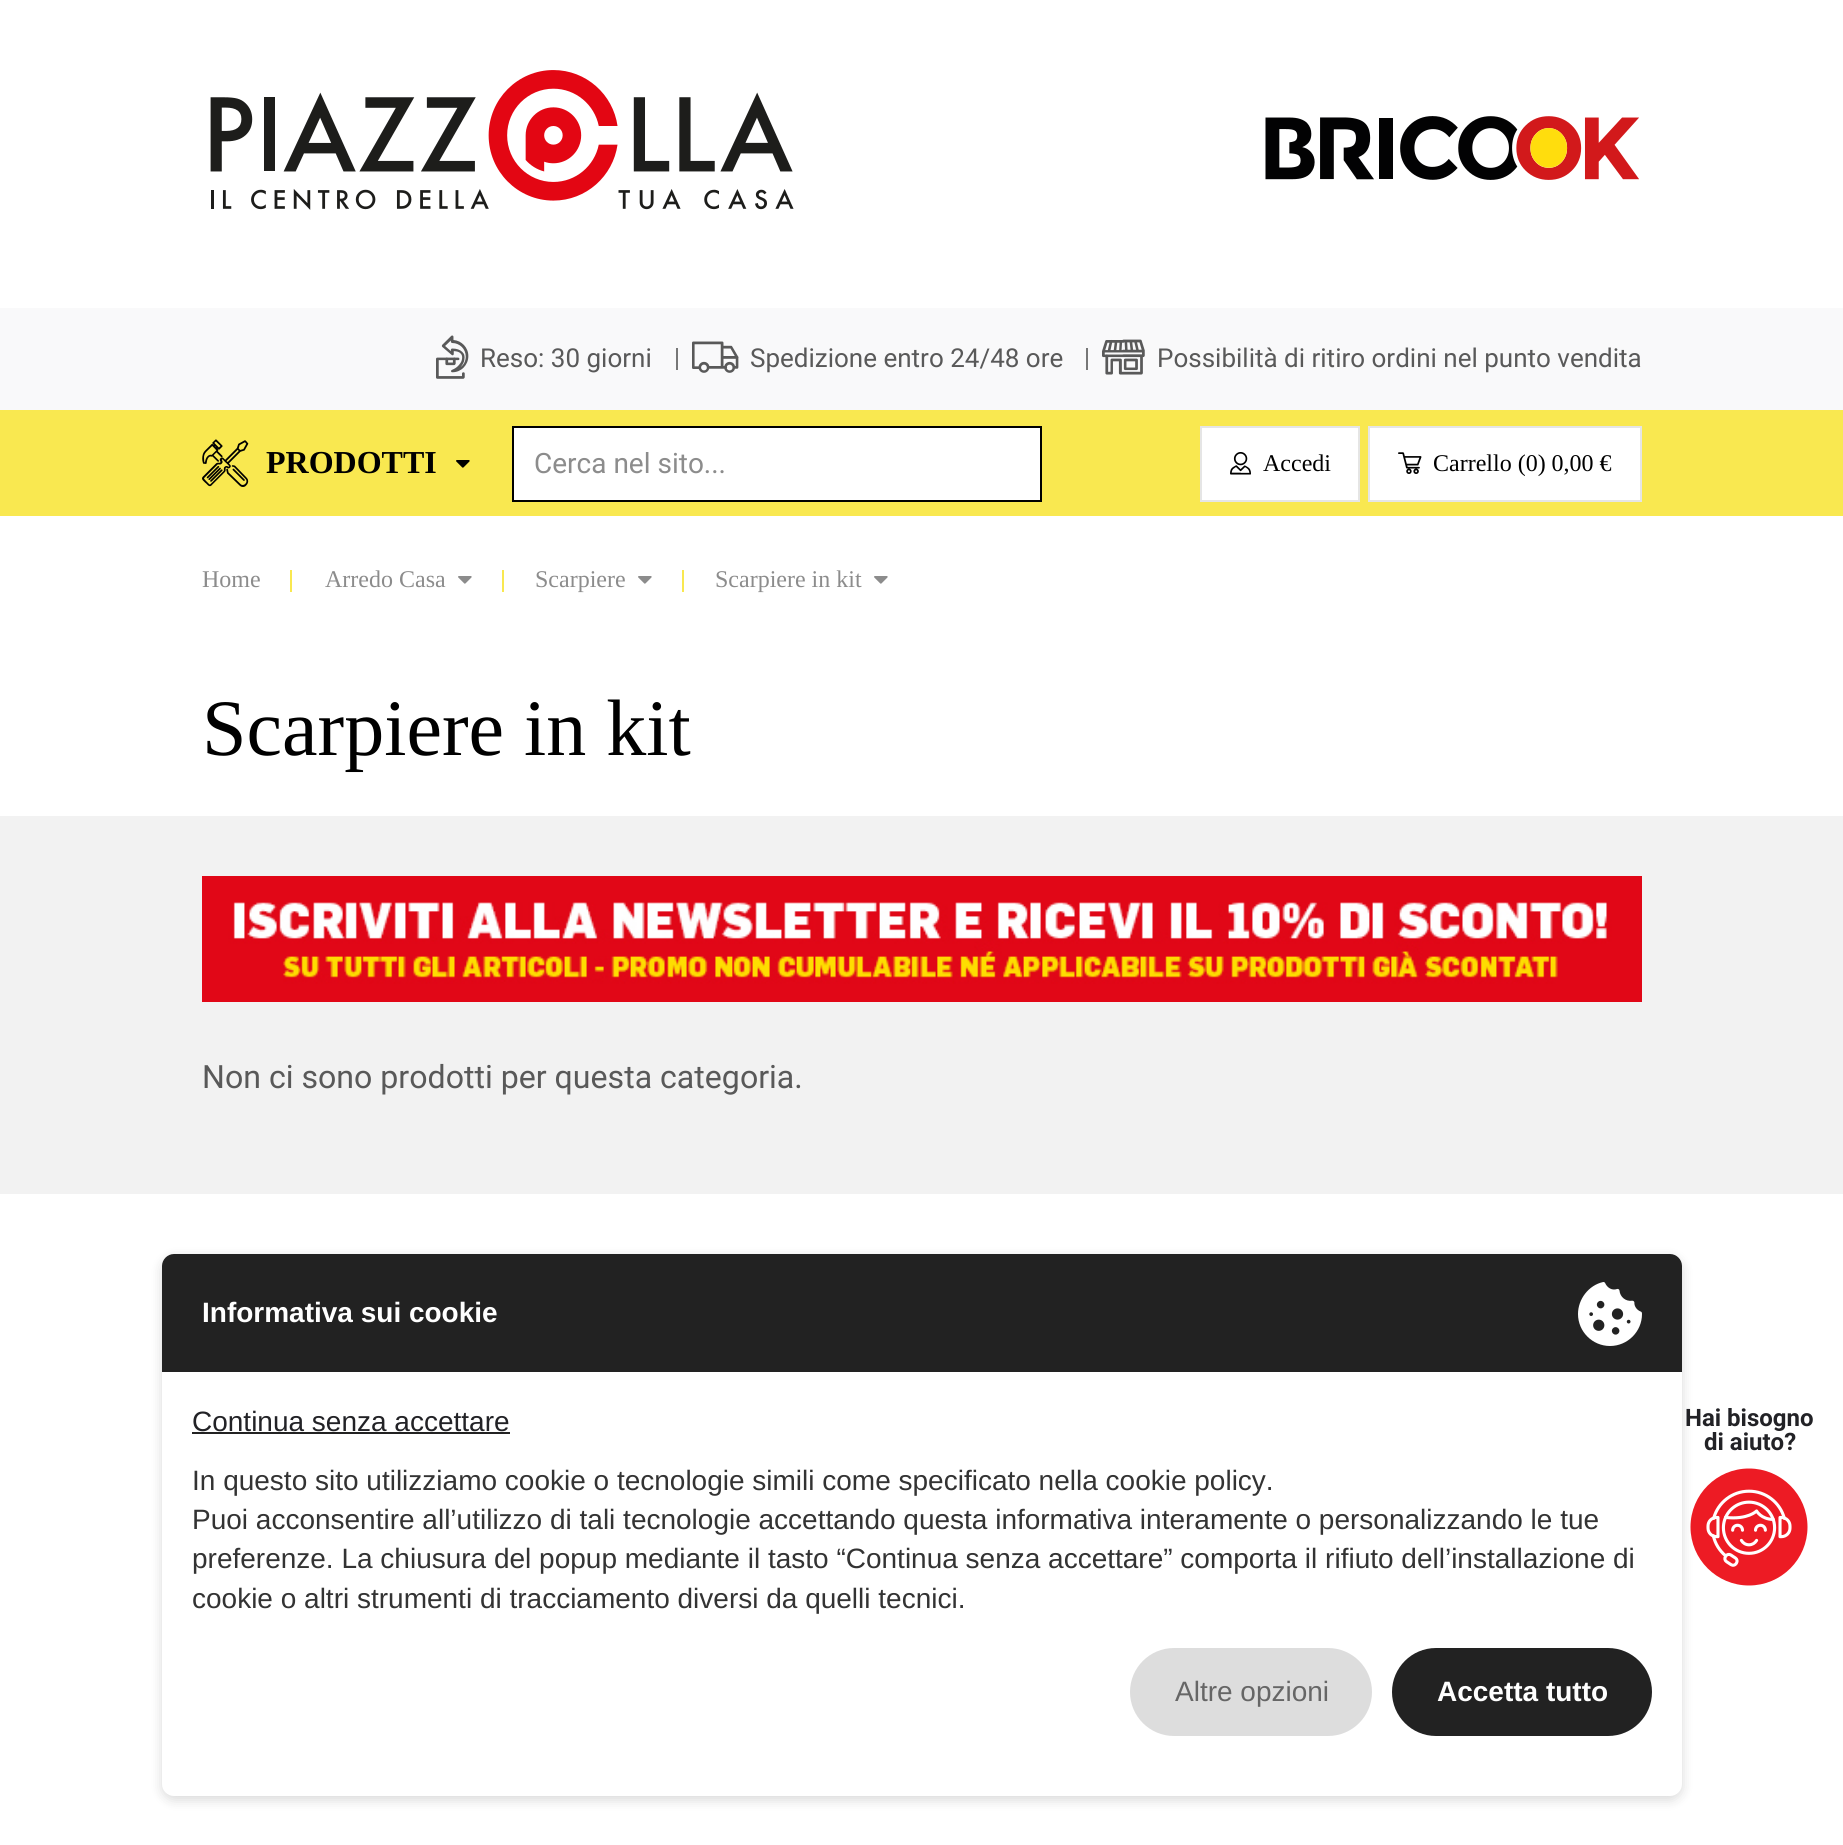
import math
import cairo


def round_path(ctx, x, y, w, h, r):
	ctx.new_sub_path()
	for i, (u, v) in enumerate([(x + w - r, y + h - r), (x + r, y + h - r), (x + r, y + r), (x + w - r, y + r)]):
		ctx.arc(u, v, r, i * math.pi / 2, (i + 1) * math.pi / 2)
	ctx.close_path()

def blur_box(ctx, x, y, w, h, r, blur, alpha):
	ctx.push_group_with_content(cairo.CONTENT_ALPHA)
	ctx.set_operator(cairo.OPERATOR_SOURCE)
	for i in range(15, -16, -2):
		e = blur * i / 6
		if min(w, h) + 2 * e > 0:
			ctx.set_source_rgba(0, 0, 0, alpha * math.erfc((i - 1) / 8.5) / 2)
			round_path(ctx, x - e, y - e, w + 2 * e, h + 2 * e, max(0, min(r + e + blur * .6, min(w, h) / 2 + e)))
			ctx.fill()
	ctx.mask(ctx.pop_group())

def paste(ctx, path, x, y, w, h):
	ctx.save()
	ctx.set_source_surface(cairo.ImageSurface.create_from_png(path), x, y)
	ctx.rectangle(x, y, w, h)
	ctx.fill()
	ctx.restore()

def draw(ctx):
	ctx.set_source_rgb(1, 1, 1)
	ctx.paint()
	paste(ctx, 'media/1.png', 210, 70, 584, 140)
	paste(ctx, 'media/2.png', 1265, 116, 374, 64)
	ctx.set_source_rgb(0.976, 0.976, 0.98)
	ctx.rectangle(0, 308, 1843, 102)
	ctx.fill()
	paste(ctx, 'media/3.png', 436, 335, 33, 44)
	ctx.select_font_face('Roboto')
	ctx.set_font_size(26)
	ctx.set_source_rgb(0.349, 0.349, 0.349)
	ctx.move_to(480, 367)
	ctx.show_text('Reso: 30 giorni')
	ctx.set_source_rgb(0.467, 0.467, 0.467)
	ctx.rectangle(676, 348, 2, 22)
	ctx.fill()
	paste(ctx, 'media/4.png', 692, 341, 47, 32)
	ctx.set_source_rgb(0.349, 0.349, 0.349)
	ctx.move_to(750, 367)
	ctx.show_text('Spedizione entro 24/48 ore')
	ctx.set_source_rgb(0.467, 0.467, 0.467)
	ctx.rectangle(1086, 348, 2, 22)
	ctx.fill()
	paste(ctx, 'media/5.png', 1102, 339, 43, 36)
	ctx.set_source_rgb(0.349, 0.349, 0.349)
	ctx.move_to(1157, 367)
	ctx.show_text('Possibilità di ritiro ordini nel punto vendita')
	ctx.set_source_rgb(0.976, 0.91, 0.314)
	ctx.rectangle(0, 410, 1843, 106)
	ctx.fill()
	paste(ctx, 'media/6.png', 202, 439, 47, 48)
	ctx.select_font_face('Liberation Serif', cairo.FONT_SLANT_NORMAL, cairo.FONT_WEIGHT_BOLD)
	ctx.set_font_size(32)
	ctx.set_source_rgb(0, 0, 0)
	ctx.move_to(266, 473)
	ctx.show_text('PRODOTTI')
	paste(ctx, 'media/7.png', 456, 460, 14, 8)
	ctx.set_source_rgb(1, 1, 1)
	ctx.rectangle(513, 427, 528, 74)
	ctx.fill_preserve()
	ctx.set_source_rgb(0, 0, 0)
	ctx.stroke()
	ctx.select_font_face('Roboto')
	ctx.set_font_size(28)
	ctx.set_source_rgb(0.549, 0.549, 0.549)
	ctx.move_to(534, 473)
	ctx.show_text('Cerca nel sito...')
	ctx.set_source_rgb(1, 1, 1)
	ctx.rectangle(1201, 427, 158, 74)
	ctx.fill_preserve()
	ctx.set_source_rgb(0.898, 0.898, 0.898)
	ctx.stroke()
	paste(ctx, 'media/8.png', 1230, 452, 21, 23)
	ctx.select_font_face('Liberation Serif')
	ctx.set_font_size(24)
	ctx.set_source_rgb(0, 0, 0)
	ctx.move_to(1263, 471)
	ctx.show_text('Accedi')
	ctx.set_source_rgb(1, 1, 1)
	ctx.rectangle(1369, 427, 272, 74)
	ctx.fill_preserve()
	ctx.set_source_rgb(0.898, 0.898, 0.898)
	ctx.stroke()
	paste(ctx, 'media/9.png', 1398, 452, 24, 22)
	ctx.set_source_rgb(0, 0, 0)
	ctx.move_to(1433, 471)
	ctx.show_text('Carrello (0) 0,00 €')
	ctx.set_source_rgb(0.549, 0.549, 0.549)
	ctx.move_to(202, 587)
	ctx.show_text('Home')
	ctx.set_source_rgb(0.976, 0.91, 0.314)
	ctx.rectangle(290, 570, 2, 22)
	ctx.fill()
	ctx.set_source_rgb(0.549, 0.549, 0.549)
	ctx.move_to(325, 587)
	ctx.show_text('Arredo Casa')
	paste(ctx, 'media/10.png', 458, 576, 14, 8)
	ctx.set_source_rgb(0.976, 0.91, 0.314)
	ctx.rectangle(502, 570, 2, 22)
	ctx.fill()
	ctx.set_source_rgb(0.549, 0.549, 0.549)
	ctx.move_to(535, 587)
	ctx.show_text('Scarpiere')
	paste(ctx, 'media/10.png', 638, 576, 14, 8)
	ctx.set_source_rgb(0.976, 0.91, 0.314)
	ctx.rectangle(682, 570, 2, 22)
	ctx.fill()
	ctx.set_source_rgb(0.549, 0.549, 0.549)
	ctx.move_to(715, 587)
	ctx.show_text('Scarpiere in kit')
	paste(ctx, 'media/10.png', 874, 576, 14, 8)
	ctx.set_font_size(80)
	ctx.set_source_rgb(0, 0, 0)
	ctx.move_to(202, 755)
	ctx.show_text('Scarpiere in kit')
	ctx.set_source_rgb(0.949, 0.949, 0.949)
	ctx.rectangle(0, 816, 1843, 378)
	ctx.fill()
	paste(ctx, 'media/11.png', 202, 876, 1440, 126)
	ctx.select_font_face('Roboto')
	ctx.set_font_size(32.1)
	ctx.set_source_rgb(0.349, 0.349, 0.349)
	ctx.move_to(202, 1088)
	ctx.show_text('Non ci sono prodotti per questa categoria.')
	ctx.select_font_face('Roboto', cairo.FONT_SLANT_NORMAL, cairo.FONT_WEIGHT_BOLD)
	ctx.set_font_size(24)
	ctx.set_source_rgb(0.133, 0.133, 0.149)
	ctx.move_to(1685, 1426)
	ctx.show_text('Hai bisogno')
	ctx.move_to(1704, 1450)
	ctx.show_text('di aiuto?')
	paste(ctx, 'media/12.png', 1690, 1468, 118, 118)
	ctx.set_source_rgb(0, 0, 0)
	blur_box(ctx, 162, 1258, 1520, 542, 12, 6, 0.15)
	ctx.set_source_rgb(1, 1, 1)
	round_path(ctx, 162, 1254, 1520, 542, 12)
	ctx.fill()
	ctx.set_source_rgb(0.133, 0.133, 0.133)
	ctx.new_path()
	ctx.move_to(174, 1254)
	ctx.line_to(1670, 1254)
	ctx.curve_to(1676.5, 1254, 1682, 1259.5, 1682, 1266)
	ctx.line_to(1682, 1372)
	ctx.line_to(162, 1372)
	ctx.line_to(162, 1266)
	ctx.curve_to(162, 1259.5, 167.5, 1254, 174, 1254)
	ctx.close_path()
	ctx.fill()
	ctx.select_font_face('Liberation Sans', cairo.FONT_SLANT_NORMAL, cairo.FONT_WEIGHT_BOLD)
	ctx.set_font_size(28)
	ctx.set_source_rgb(1, 1, 1)
	ctx.move_to(202, 1322)
	ctx.show_text('Informativa sui cookie')
	paste(ctx, 'media/13.png', 1578, 1282, 64, 64)
	ctx.select_font_face('Liberation Sans')
	ctx.set_source_rgb(0.133, 0.133, 0.149)
	ctx.move_to(192, 1431)
	ctx.show_text('Continua senza accettare')
	ctx.set_source_rgb(0.133, 0.133, 0.133)
	ctx.rectangle(192, 1432, 318, 2)
	ctx.fill()
	ctx.set_source_rgb(0.2, 0.2, 0.2)
	for x, y, s in [
		(192, 1490, 'In questo sito utilizziamo cookie o tecnologie simili come specificato nella cookie policy.'),
		(192, 1529, 'Puoi acconsentire all’utilizzo di tali tecnologie accettando questa informativa interamente o personalizzando le tue'),
		(192, 1568, 'preferenze. La chiusura del popup mediante il tasto “Continua senza accettare” comporta il rifiuto dell’installazione di'),
		(192, 1608, 'cookie o altri strumenti di tracciamento diversi da quelli tecnici.'),
	]:
		ctx.move_to(x, y)
		ctx.show_text(s)
	ctx.set_source_rgb(0.867, 0.867, 0.867)
	round_path(ctx, 1130, 1648, 242, 88, 44)
	ctx.fill()
	ctx.set_source_rgb(0.4, 0.4, 0.4)
	ctx.move_to(1175, 1701)
	ctx.show_text('Altre opzioni')
	ctx.set_source_rgb(0.133, 0.133, 0.133)
	round_path(ctx, 1392, 1648, 260, 88, 44)
	ctx.fill()
	ctx.select_font_face('Liberation Sans', cairo.FONT_SLANT_NORMAL, cairo.FONT_WEIGHT_BOLD)
	ctx.set_source_rgb(1, 1, 1)
	ctx.move_to(1437, 1701)
	ctx.show_text('Accetta tutto')


surface = cairo.ImageSurface(cairo.FORMAT_RGB24, 1843, 1845)
ctx = cairo.Context(surface)
options = cairo.FontOptions()
options.set_hint_metrics(cairo.HINT_METRICS_OFF)
options.set_hint_style(cairo.HINT_STYLE_NONE)
ctx.set_font_options(options)
ctx.set_miter_limit(4)
draw(ctx)
surface.write_to_png('image.png')
